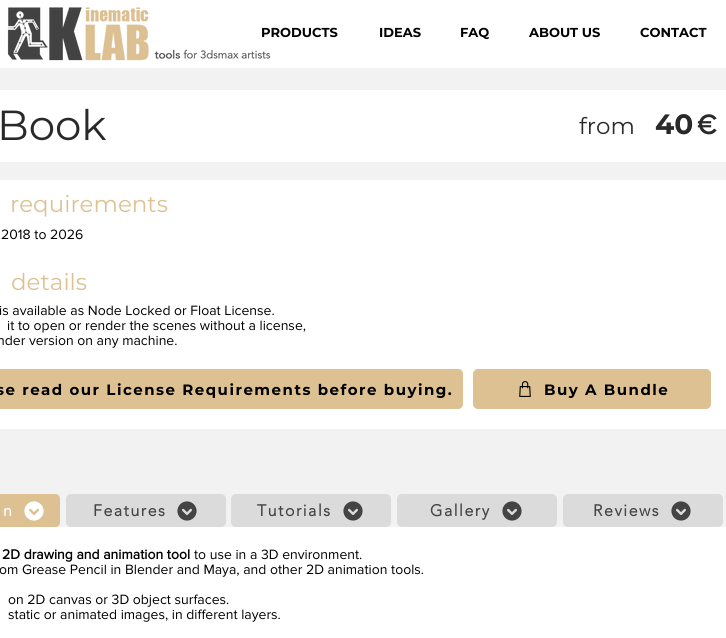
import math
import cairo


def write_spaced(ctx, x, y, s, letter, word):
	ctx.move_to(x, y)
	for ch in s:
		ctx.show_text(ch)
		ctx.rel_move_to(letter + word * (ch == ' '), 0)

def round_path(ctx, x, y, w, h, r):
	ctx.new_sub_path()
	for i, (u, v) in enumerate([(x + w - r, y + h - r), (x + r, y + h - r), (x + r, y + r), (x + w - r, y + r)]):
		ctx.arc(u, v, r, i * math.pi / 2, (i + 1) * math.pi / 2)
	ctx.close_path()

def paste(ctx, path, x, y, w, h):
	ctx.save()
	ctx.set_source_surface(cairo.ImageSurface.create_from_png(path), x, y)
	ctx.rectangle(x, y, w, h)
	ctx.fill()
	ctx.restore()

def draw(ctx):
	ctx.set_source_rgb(0.949, 0.949, 0.949)
	ctx.paint()
	ctx.set_source_rgb(1, 1, 1)
	ctx.rectangle(0, 0, 726, 68)
	ctx.fill()
	paste(ctx, 'media/1.png', 7, 7, 264, 54)
	ctx.select_font_face('Montserrat', cairo.FONT_SLANT_NORMAL, cairo.FONT_WEIGHT_BOLD)
	ctx.set_font_size(13)
	ctx.set_source_rgb(0, 0, 0)
	for x, y, s in [
		(261, 37, 'PRODUCTS'),
		(379, 37, 'IDEAS'),
		(460, 37, 'FAQ'),
		(529, 37, 'ABOUT US'),
		(640, 37, 'CONTACT'),
	]:
		ctx.move_to(x, y)
		ctx.show_text(s)
	ctx.set_source_rgb(1, 1, 1)
	ctx.rectangle(0, 90, 726, 72)
	ctx.fill()
	ctx.select_font_face('Montserrat')
	ctx.set_font_size(42)
	ctx.set_source_rgb(0.161, 0.161, 0.161)
	ctx.move_to(-3, 140)
	ctx.show_text('Book')
	ctx.set_font_size(23)
	ctx.move_to(579, 134)
	ctx.show_text('from')
	ctx.select_font_face('Montserrat', cairo.FONT_SLANT_NORMAL, cairo.FONT_WEIGHT_BOLD)
	ctx.set_font_size(28)
	ctx.move_to(655, 134)
	ctx.show_text('40')
	ctx.select_font_face('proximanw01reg', cairo.FONT_SLANT_NORMAL, cairo.FONT_WEIGHT_BOLD)
	ctx.move_to(697, 134)
	ctx.show_text('€')
	ctx.set_source_rgb(1, 1, 1)
	ctx.rectangle(0, 180, 726, 249)
	ctx.fill()
	ctx.select_font_face('Montserrat')
	ctx.set_font_size(23)
	ctx.set_source_rgb(0.867, 0.757, 0.573)
	ctx.move_to(10, 212)
	ctx.show_text('requirements')
	ctx.select_font_face('proximanw01reg')
	ctx.set_font_size(14)
	ctx.set_source_rgb(0, 0, 0)
	ctx.move_to(1, 239)
	ctx.show_text('2018 to 2026')
	ctx.select_font_face('Montserrat')
	ctx.set_font_size(23)
	ctx.set_source_rgb(0.867, 0.757, 0.573)
	ctx.move_to(11, 290)
	ctx.show_text('details')
	ctx.select_font_face('proximanw01reg')
	ctx.set_font_size(14)
	ctx.set_source_rgb(0, 0, 0)
	for x, y, s in [
		(-1, 315, 'is available as Node Locked or Float License.'),
		(7, 330, 'it to open or render the scenes without a license,'),
		(-3, 345, 'nder version on any machine.'),
	]:
		ctx.move_to(x, y)
		ctx.show_text(s)
	ctx.set_source_rgb(0.867, 0.757, 0.573)
	ctx.new_path()
	ctx.move_to(0, 369)
	ctx.line_to(458, 369)
	ctx.curve_to(461, 369, 463, 371, 463, 374)
	ctx.line_to(463, 404)
	ctx.curve_to(463, 407, 461, 409, 458, 409)
	ctx.line_to(0, 409)
	ctx.close_path()
	ctx.fill()
	ctx.select_font_face('Montserrat', cairo.FONT_SLANT_NORMAL, cairo.FONT_WEIGHT_BOLD)
	ctx.set_font_size(15)
	ctx.set_source_rgb(0, 0, 0)
	write_spaced(ctx, -4, 395, 'se read our License Requirements before buying.', 1.5, 0)
	ctx.set_source_rgb(0.867, 0.757, 0.573)
	round_path(ctx, 473, 369, 238, 40, 5)
	ctx.fill()
	paste(ctx, 'media/2.png', 519, 381, 12, 16)
	ctx.set_source_rgb(0, 0, 0)
	write_spaced(ctx, 544, 395, 'Buy A Bundle', 1.5, 0)
	ctx.set_source_rgb(0.867, 0.757, 0.573)
	ctx.new_path()
	ctx.move_to(0, 494)
	ctx.line_to(55, 494)
	ctx.curve_to(58, 494, 60, 496, 60, 499)
	ctx.line_to(60, 522)
	ctx.curve_to(60, 525, 58, 527, 55, 527)
	ctx.line_to(0, 527)
	ctx.close_path()
	ctx.fill()
	ctx.select_font_face('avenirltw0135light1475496', cairo.FONT_SLANT_NORMAL, cairo.FONT_WEIGHT_BOLD)
	ctx.set_font_size(16)
	ctx.set_source_rgb(1, 1, 1)
	write_spaced(ctx, 3, 516, 'n', 1.5, 0)
	paste(ctx, 'media/3.png', 24, 501, 20, 20)
	ctx.set_source_rgb(0.859, 0.859, 0.859)
	round_path(ctx, 66, 494, 160, 33, 5)
	ctx.fill()
	ctx.set_source_rgb(0.267, 0.267, 0.267)
	write_spaced(ctx, 93, 516, 'Features', 1.5, 0)
	paste(ctx, 'media/4.png', 177, 501, 20, 20)
	ctx.set_source_rgb(0.859, 0.859, 0.859)
	round_path(ctx, 231, 494, 160, 33, 5)
	ctx.fill()
	ctx.set_source_rgb(0.267, 0.267, 0.267)
	write_spaced(ctx, 257, 516, 'Tutorials', 1.5, 0)
	paste(ctx, 'media/4.png', 343, 501, 20, 20)
	ctx.set_source_rgb(0.859, 0.859, 0.859)
	round_path(ctx, 397, 494, 160, 33, 5)
	ctx.fill()
	ctx.set_source_rgb(0.267, 0.267, 0.267)
	write_spaced(ctx, 430, 516, 'Gallery', 1.5, 0)
	paste(ctx, 'media/4.png', 502, 501, 20, 20)
	ctx.set_source_rgb(0.859, 0.859, 0.859)
	round_path(ctx, 563, 494, 160, 33, 5)
	ctx.fill()
	ctx.set_source_rgb(0.267, 0.267, 0.267)
	write_spaced(ctx, 593, 516, 'Reviews', 1.5, 0)
	paste(ctx, 'media/4.png', 671, 501, 20, 20)
	ctx.set_source_rgb(1, 1, 1)
	ctx.rectangle(0, 527, 726, 111)
	ctx.fill()
	ctx.select_font_face('proximanw01reg', cairo.FONT_SLANT_NORMAL, cairo.FONT_WEIGHT_BOLD)
	ctx.set_font_size(14)
	ctx.set_source_rgb(0, 0, 0)
	ctx.move_to(2, 559)
	ctx.show_text('2D drawing and animation tool')
	ctx.select_font_face('proximanw01reg')
	for x, y, s in [
		(194, 559, 'to use in a 3D environment.'),
		(-1, 574, 'om Grease Pencil in Blender and Maya, and other 2D animation tools.'),
		(8, 604, 'on 2D canvas or 3D object surfaces.'),
		(8, 619, 'static or animated images, in different layers.'),
	]:
		ctx.move_to(x, y)
		ctx.show_text(s)


surface = cairo.ImageSurface(cairo.FORMAT_RGB24, 726, 638)
ctx = cairo.Context(surface)
options = cairo.FontOptions()
options.set_hint_metrics(cairo.HINT_METRICS_OFF)
options.set_hint_style(cairo.HINT_STYLE_NONE)
ctx.set_font_options(options)
ctx.set_miter_limit(4)
draw(ctx)
surface.write_to_png('image.png')
